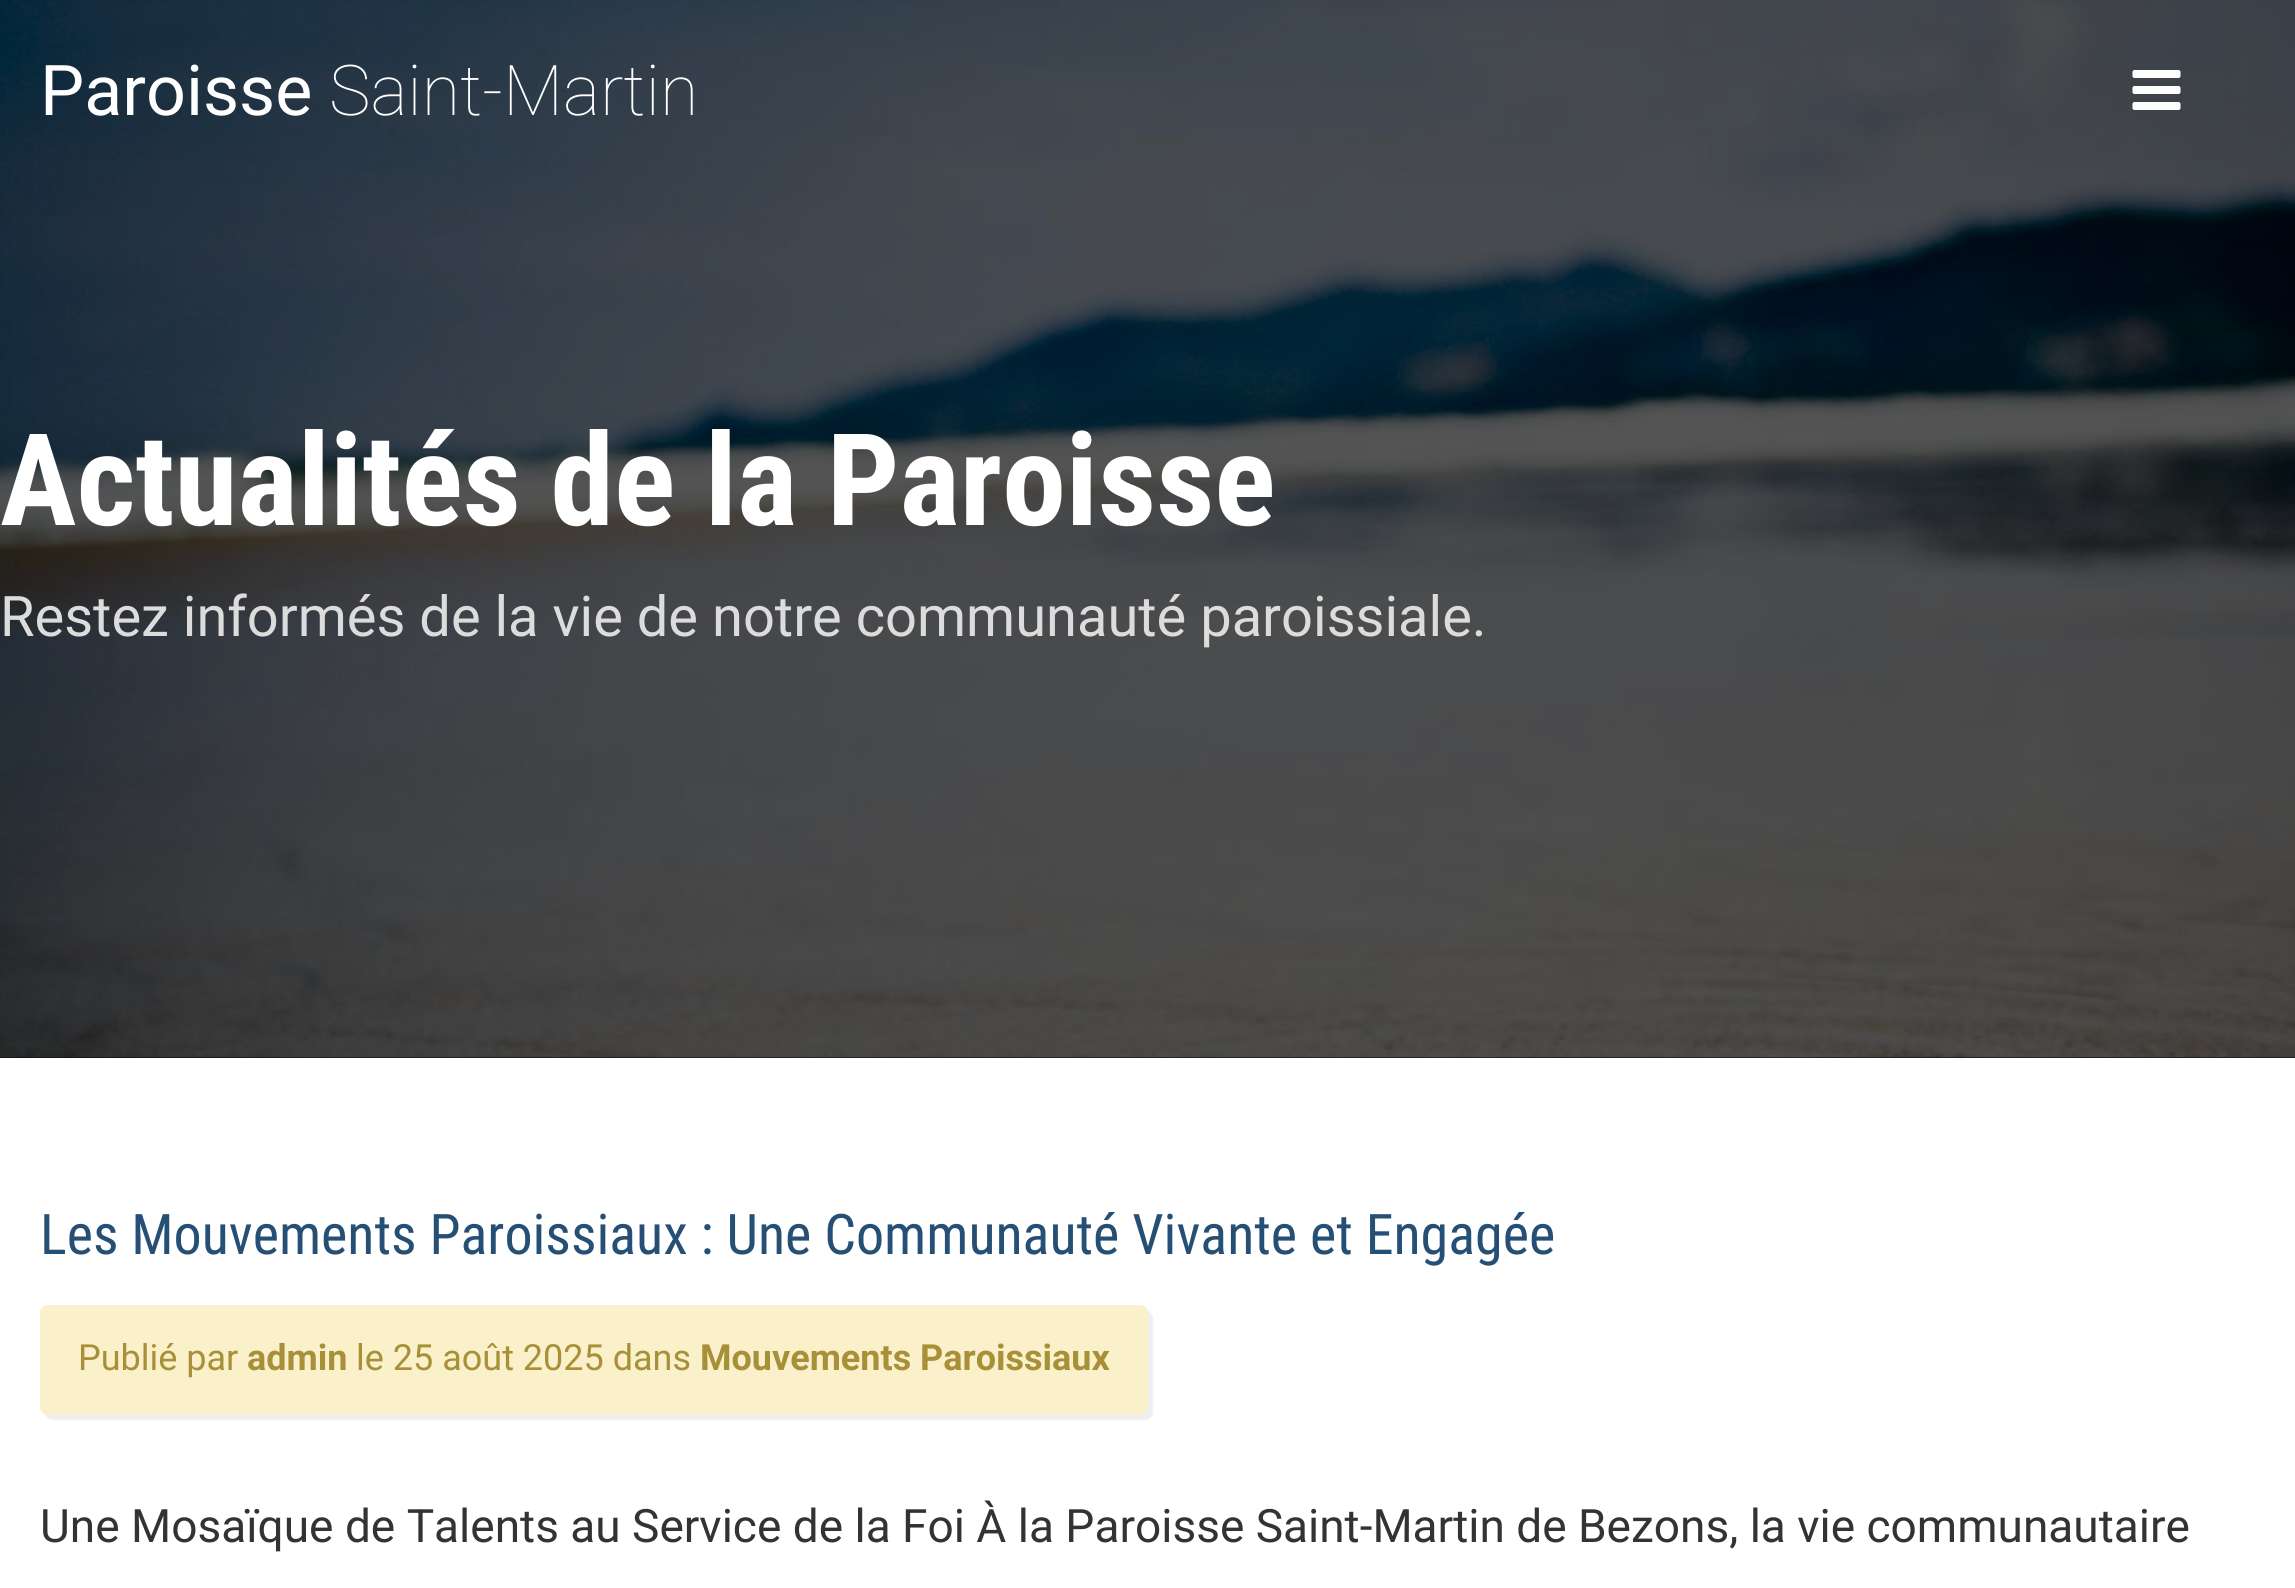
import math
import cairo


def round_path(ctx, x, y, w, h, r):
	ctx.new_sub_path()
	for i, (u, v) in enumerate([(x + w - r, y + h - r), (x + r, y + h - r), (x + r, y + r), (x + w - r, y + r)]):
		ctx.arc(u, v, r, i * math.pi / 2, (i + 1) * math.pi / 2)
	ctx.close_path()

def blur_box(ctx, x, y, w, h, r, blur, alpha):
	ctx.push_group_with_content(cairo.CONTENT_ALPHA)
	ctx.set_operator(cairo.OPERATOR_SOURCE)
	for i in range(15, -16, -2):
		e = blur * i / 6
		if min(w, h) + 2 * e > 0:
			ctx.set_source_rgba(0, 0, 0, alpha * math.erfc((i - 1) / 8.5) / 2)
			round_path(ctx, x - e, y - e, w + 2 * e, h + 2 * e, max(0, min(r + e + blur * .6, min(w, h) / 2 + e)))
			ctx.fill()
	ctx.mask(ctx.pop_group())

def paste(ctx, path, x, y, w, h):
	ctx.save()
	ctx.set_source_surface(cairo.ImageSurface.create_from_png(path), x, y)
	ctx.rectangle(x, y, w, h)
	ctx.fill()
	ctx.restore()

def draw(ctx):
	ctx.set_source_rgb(1, 1, 1)
	ctx.paint()
	ctx.set_source_rgb(0, 0, 0)
	ctx.rectangle(0, 0, 2295, 1058)
	ctx.fill()
	paste(ctx, 'media/2.png', 0, 0, 2295, 1058)
	ctx.select_font_face('Roboto')
	ctx.set_font_size(70)
	ctx.set_source_rgb(1, 1, 1)
	ctx.move_to(40, 115)
	ctx.show_text('Paroisse')
	ctx.select_font_face('Roboto Thin')
	ctx.move_to(329, 115)
	ctx.show_text('Saint-Martin')
	paste(ctx, 'media/1.png', 2132, 70, 49, 40)
	ctx.select_font_face('Roboto Condensed', cairo.FONT_SLANT_NORMAL, cairo.FONT_WEIGHT_BOLD)
	ctx.set_font_size(128)
	ctx.move_to(0, 525)
	ctx.show_text('Actualités de la Paroisse')
	ctx.select_font_face('Roboto')
	ctx.set_font_size(56)
	ctx.set_source_rgb(0.863, 0.863, 0.863)
	ctx.move_to(0, 636)
	ctx.show_text('Restez informés de la vie de notre communauté paroissiale.')
	ctx.select_font_face('Roboto Condensed')
	ctx.set_source_rgb(0.145, 0.31, 0.459)
	ctx.move_to(40, 1254)
	ctx.show_text('Les Mouvements Paroissiaux : Une Communauté Vivante et Engagée')
	ctx.set_source_rgb(0, 0, 0)
	blur_box(ctx, 45, 1310, 1108, 110, 8, 1, 0.07)
	ctx.set_source_rgb(0.98, 0.941, 0.792)
	round_path(ctx, 40, 1305, 1108, 110, 8)
	ctx.fill()
	ctx.select_font_face('Roboto')
	ctx.set_font_size(36)
	ctx.set_source_rgb(0.655, 0.565, 0.22)
	ctx.move_to(78, 1370)
	ctx.show_text('Publié par')
	ctx.select_font_face('Roboto', cairo.FONT_SLANT_NORMAL, cairo.FONT_WEIGHT_BOLD)
	ctx.move_to(247, 1370)
	ctx.show_text('admin')
	ctx.select_font_face('Roboto')
	ctx.move_to(356, 1370)
	ctx.show_text('le 25 août 2025 dans')
	ctx.select_font_face('Roboto', cairo.FONT_SLANT_NORMAL, cairo.FONT_WEIGHT_BOLD)
	ctx.move_to(700, 1370)
	ctx.show_text('Mouvements Paroissiaux')
	ctx.select_font_face('Roboto')
	ctx.set_font_size(46)
	ctx.set_source_rgb(0.2, 0.2, 0.2)
	ctx.move_to(40, 1542)
	ctx.show_text('Une Mosaïque de Talents au Service de la Foi À la Paroisse Saint-Martin de Bezons, la vie communautaire')


surface = cairo.ImageSurface(cairo.FORMAT_RGB24, 2295, 1588)
ctx = cairo.Context(surface)
options = cairo.FontOptions()
options.set_hint_metrics(cairo.HINT_METRICS_OFF)
options.set_hint_style(cairo.HINT_STYLE_NONE)
ctx.set_font_options(options)
ctx.set_miter_limit(4)
draw(ctx)
surface.write_to_png('image.png')
